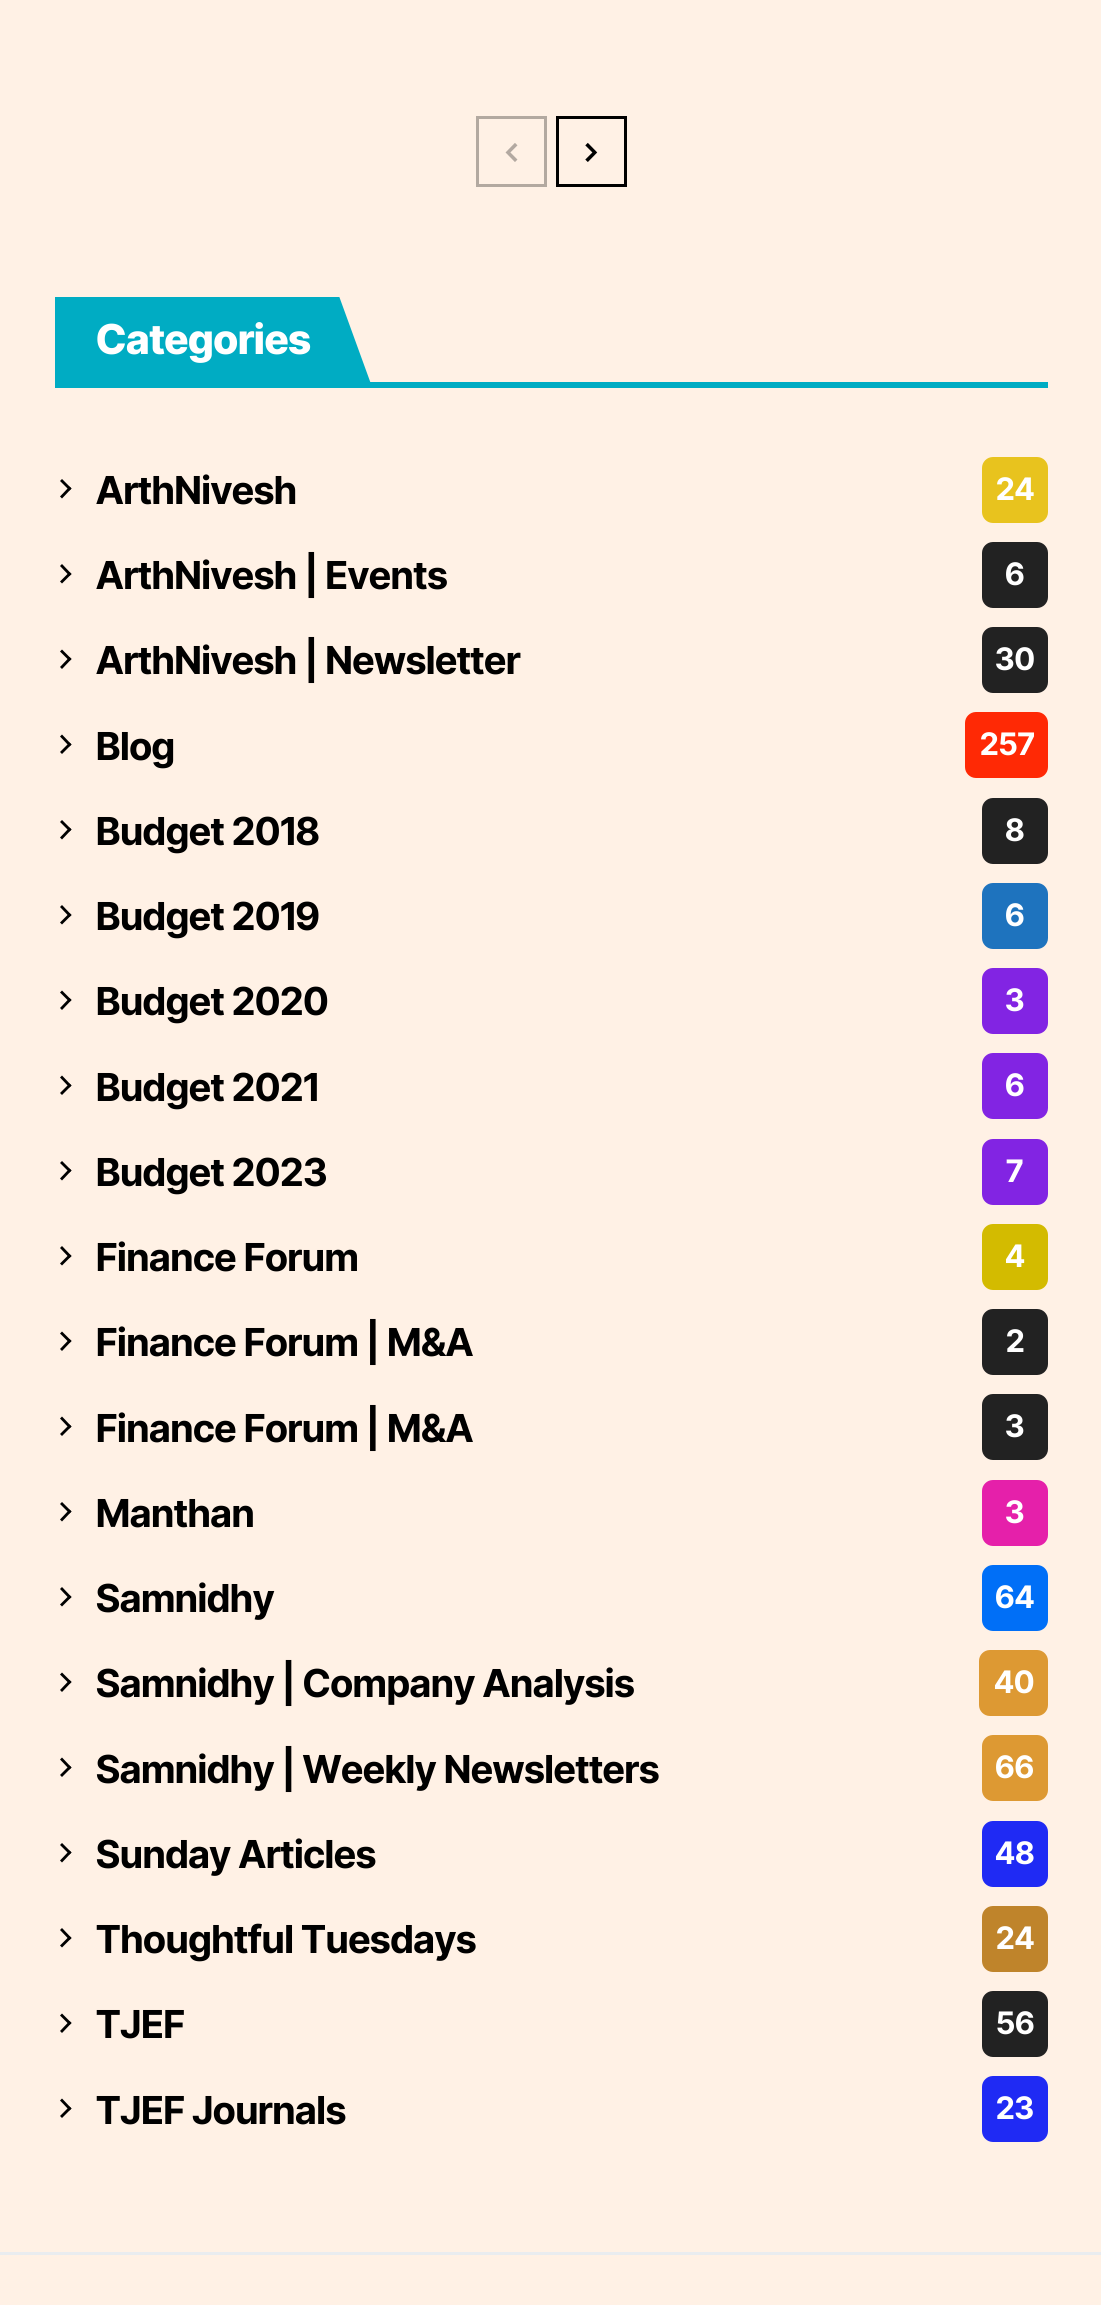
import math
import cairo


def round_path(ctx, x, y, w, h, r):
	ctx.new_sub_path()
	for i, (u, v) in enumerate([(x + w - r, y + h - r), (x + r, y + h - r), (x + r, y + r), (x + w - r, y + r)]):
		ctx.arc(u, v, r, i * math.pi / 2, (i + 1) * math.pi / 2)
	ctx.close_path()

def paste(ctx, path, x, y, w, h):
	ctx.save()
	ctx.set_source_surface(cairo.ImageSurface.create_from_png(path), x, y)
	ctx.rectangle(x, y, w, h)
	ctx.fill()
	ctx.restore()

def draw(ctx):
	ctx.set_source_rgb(1, 0.945, 0.898)
	ctx.paint()
	ctx.rectangle(477.5, 117.5, 68, 68)
	ctx.set_source_rgb(0.702, 0.663, 0.627)
	ctx.set_line_width(3)
	ctx.stroke()
	paste(ctx, 'media/1.png', 505, 143, 13, 19)
	ctx.rectangle(557.5, 117.5, 68, 68)
	ctx.set_source_rgb(0, 0, 0)
	ctx.stroke()
	paste(ctx, 'media/2.png', 585, 142, 13, 20)
	ctx.set_source_rgb(0, 0.675, 0.765)
	ctx.rectangle(55, 382, 993, 6)
	ctx.fill()
	ctx.rectangle(55, 297, 283, 85)
	ctx.fill()
	ctx.save()
	ctx.rectangle(55, 297, 993, 91)
	ctx.clip()
	ctx.new_path()
	ctx.move_to(251, 296)
	ctx.line_to(339, 296)
	ctx.line_to(371, 384)
	ctx.line_to(283, 384)
	ctx.close_path()
	ctx.fill()
	ctx.restore()
	ctx.select_font_face('Inter Tight ExtraBold')
	ctx.set_font_size(41.25)
	ctx.set_source_rgb(1, 1, 1)
	ctx.move_to(96, 354)
	ctx.show_text('Categories')
	ctx.set_source_rgb(0, 0, 0)
	ctx.new_path()
	ctx.move_to(60, 481)
	ctx.line_to(62, 479)
	ctx.line_to(71.5, 488.5)
	ctx.line_to(69.5, 490.5)
	ctx.close_path()
	ctx.fill()
	ctx.new_path()
	ctx.move_to(60, 496.5)
	ctx.line_to(69.5, 486.5)
	ctx.line_to(71.5, 488.5)
	ctx.line_to(62, 498.5)
	ctx.close_path()
	ctx.fill()
	ctx.select_font_face('Inter Tight', cairo.FONT_SLANT_NORMAL, cairo.FONT_WEIGHT_BOLD)
	ctx.set_font_size(38.5)
	ctx.move_to(96, 504)
	ctx.show_text('ArthNivesh')
	ctx.set_source_rgb(0.91, 0.765, 0.118)
	round_path(ctx, 982, 457, 66, 66, 11)
	ctx.fill()
	ctx.set_font_size(31)
	ctx.set_source_rgb(1, 1, 1)
	ctx.move_to(996, 500)
	ctx.show_text('24')
	ctx.set_source_rgb(0, 0, 0)
	ctx.new_path()
	ctx.move_to(60, 566)
	ctx.line_to(62, 564)
	ctx.line_to(71.5, 574)
	ctx.line_to(69.5, 576)
	ctx.close_path()
	ctx.fill()
	ctx.new_path()
	ctx.move_to(60, 581.5)
	ctx.line_to(69.5, 572)
	ctx.line_to(71.5, 574)
	ctx.line_to(62, 583.5)
	ctx.close_path()
	ctx.fill()
	ctx.set_font_size(38.5)
	ctx.move_to(96, 589)
	ctx.show_text('ArthNivesh | Events')
	ctx.set_source_rgb(0.133, 0.133, 0.133)
	round_path(ctx, 982, 542, 66, 66, 11)
	ctx.fill()
	ctx.set_font_size(31)
	ctx.set_source_rgb(1, 1, 1)
	ctx.move_to(1005, 585)
	ctx.show_text('6')
	ctx.set_source_rgb(0, 0, 0)
	ctx.new_path()
	ctx.move_to(60, 651.5)
	ctx.line_to(62, 649.5)
	ctx.line_to(71.5, 659)
	ctx.line_to(69.5, 661)
	ctx.close_path()
	ctx.fill()
	ctx.new_path()
	ctx.move_to(60, 667)
	ctx.line_to(69.5, 657)
	ctx.line_to(71.5, 659)
	ctx.line_to(62, 669)
	ctx.close_path()
	ctx.fill()
	ctx.set_font_size(38.5)
	ctx.move_to(96, 674)
	ctx.show_text('ArthNivesh | Newsletter')
	ctx.set_source_rgb(0.133, 0.133, 0.133)
	round_path(ctx, 982, 627, 66, 66, 11)
	ctx.fill()
	ctx.set_font_size(31)
	ctx.set_source_rgb(1, 1, 1)
	ctx.move_to(995, 670)
	ctx.show_text('30')
	ctx.set_source_rgb(0, 0, 0)
	ctx.new_path()
	ctx.move_to(60, 736.5)
	ctx.line_to(62, 734.5)
	ctx.line_to(71.5, 744.5)
	ctx.line_to(69.5, 746.5)
	ctx.close_path()
	ctx.fill()
	ctx.new_path()
	ctx.move_to(60, 752)
	ctx.line_to(69.5, 742.5)
	ctx.line_to(71.5, 744.5)
	ctx.line_to(62, 754)
	ctx.close_path()
	ctx.fill()
	ctx.set_font_size(38.5)
	ctx.move_to(96, 760)
	ctx.show_text('Blog')
	ctx.set_source_rgb(1, 0.161, 0.02)
	round_path(ctx, 965, 712, 83, 66, 11)
	ctx.fill()
	ctx.set_font_size(31)
	ctx.set_source_rgb(1, 1, 1)
	ctx.move_to(980, 755)
	ctx.show_text('257')
	ctx.set_source_rgb(0, 0, 0)
	ctx.new_path()
	ctx.move_to(60, 822)
	ctx.line_to(62, 820)
	ctx.line_to(71.5, 829.5)
	ctx.line_to(69.5, 831.5)
	ctx.close_path()
	ctx.fill()
	ctx.new_path()
	ctx.move_to(60, 837.5)
	ctx.line_to(69.5, 827.5)
	ctx.line_to(71.5, 829.5)
	ctx.line_to(62, 839.5)
	ctx.close_path()
	ctx.fill()
	ctx.set_font_size(38.5)
	ctx.move_to(96, 845)
	ctx.show_text('Budget 2018')
	ctx.set_source_rgb(0.133, 0.133, 0.133)
	round_path(ctx, 982, 798, 66, 66, 11)
	ctx.fill()
	ctx.set_font_size(31)
	ctx.set_source_rgb(1, 1, 1)
	ctx.move_to(1005, 841)
	ctx.show_text('8')
	ctx.set_source_rgb(0, 0, 0)
	ctx.new_path()
	ctx.move_to(60, 907)
	ctx.line_to(62, 905)
	ctx.line_to(71.5, 915)
	ctx.line_to(69.5, 917)
	ctx.close_path()
	ctx.fill()
	ctx.new_path()
	ctx.move_to(60, 922.5)
	ctx.line_to(69.5, 913)
	ctx.line_to(71.5, 915)
	ctx.line_to(62, 924.5)
	ctx.close_path()
	ctx.fill()
	ctx.set_font_size(38.5)
	ctx.move_to(96, 930)
	ctx.show_text('Budget 2019')
	ctx.set_source_rgb(0.118, 0.451, 0.745)
	round_path(ctx, 982, 883, 66, 66, 11)
	ctx.fill()
	ctx.set_font_size(31)
	ctx.set_source_rgb(1, 1, 1)
	ctx.move_to(1005, 926)
	ctx.show_text('6')
	ctx.set_source_rgb(0, 0, 0)
	ctx.new_path()
	ctx.move_to(60, 992.5)
	ctx.line_to(62, 990.5)
	ctx.line_to(71.5, 1000)
	ctx.line_to(69.5, 1002)
	ctx.close_path()
	ctx.fill()
	ctx.new_path()
	ctx.move_to(60, 1008)
	ctx.line_to(69.5, 998)
	ctx.line_to(71.5, 1000)
	ctx.line_to(62, 1010)
	ctx.close_path()
	ctx.fill()
	ctx.set_font_size(38.5)
	ctx.move_to(96, 1015)
	ctx.show_text('Budget 2020')
	ctx.set_source_rgb(0.51, 0.141, 0.89)
	round_path(ctx, 982, 968, 66, 66, 11)
	ctx.fill()
	ctx.set_font_size(31)
	ctx.set_source_rgb(1, 1, 1)
	ctx.move_to(1005, 1011)
	ctx.show_text('3')
	ctx.set_source_rgb(0, 0, 0)
	ctx.new_path()
	ctx.move_to(60, 1077.5)
	ctx.line_to(62, 1075.5)
	ctx.line_to(71.5, 1085.5)
	ctx.line_to(69.5, 1087.5)
	ctx.close_path()
	ctx.fill()
	ctx.new_path()
	ctx.move_to(60, 1093)
	ctx.line_to(69.5, 1083.5)
	ctx.line_to(71.5, 1085.5)
	ctx.line_to(62, 1095)
	ctx.close_path()
	ctx.fill()
	ctx.set_font_size(38.5)
	ctx.move_to(96, 1101)
	ctx.show_text('Budget 2021')
	ctx.set_source_rgb(0.51, 0.141, 0.89)
	round_path(ctx, 982, 1053, 66, 66, 11)
	ctx.fill()
	ctx.set_font_size(31)
	ctx.set_source_rgb(1, 1, 1)
	ctx.move_to(1005, 1096)
	ctx.show_text('6')
	ctx.set_source_rgb(0, 0, 0)
	ctx.new_path()
	ctx.move_to(60, 1163)
	ctx.line_to(62, 1161)
	ctx.line_to(71.5, 1170.5)
	ctx.line_to(69.5, 1172.5)
	ctx.close_path()
	ctx.fill()
	ctx.new_path()
	ctx.move_to(60, 1178.5)
	ctx.line_to(69.5, 1168.5)
	ctx.line_to(71.5, 1170.5)
	ctx.line_to(62, 1180.5)
	ctx.close_path()
	ctx.fill()
	ctx.set_font_size(38.5)
	ctx.move_to(96, 1186)
	ctx.show_text('Budget 2023')
	ctx.set_source_rgb(0.51, 0.141, 0.89)
	round_path(ctx, 982, 1139, 66, 66, 11)
	ctx.fill()
	ctx.set_font_size(31)
	ctx.set_source_rgb(1, 1, 1)
	ctx.move_to(1006, 1182)
	ctx.show_text('7')
	ctx.set_source_rgb(0, 0, 0)
	ctx.new_path()
	ctx.move_to(60, 1248)
	ctx.line_to(62, 1246)
	ctx.line_to(71.5, 1256)
	ctx.line_to(69.5, 1258)
	ctx.close_path()
	ctx.fill()
	ctx.new_path()
	ctx.move_to(60, 1263.5)
	ctx.line_to(69.5, 1254)
	ctx.line_to(71.5, 1256)
	ctx.line_to(62, 1265.5)
	ctx.close_path()
	ctx.fill()
	ctx.set_font_size(38.5)
	ctx.move_to(96, 1271)
	ctx.show_text('Finance Forum')
	ctx.set_source_rgb(0.827, 0.733, 0)
	round_path(ctx, 982, 1224, 66, 66, 11)
	ctx.fill()
	ctx.set_font_size(31)
	ctx.set_source_rgb(1, 1, 1)
	ctx.move_to(1005, 1267)
	ctx.show_text('4')
	ctx.set_source_rgb(0, 0, 0)
	ctx.new_path()
	ctx.move_to(60, 1333.5)
	ctx.line_to(62, 1331.5)
	ctx.line_to(71.5, 1341)
	ctx.line_to(69.5, 1343)
	ctx.close_path()
	ctx.fill()
	ctx.new_path()
	ctx.move_to(60, 1349)
	ctx.line_to(69.5, 1339)
	ctx.line_to(71.5, 1341)
	ctx.line_to(62, 1351)
	ctx.close_path()
	ctx.fill()
	ctx.set_font_size(38.5)
	ctx.move_to(96, 1356)
	ctx.show_text('Finance Forum | M&A')
	ctx.set_source_rgb(0.133, 0.133, 0.133)
	round_path(ctx, 982, 1309, 66, 66, 11)
	ctx.fill()
	ctx.set_font_size(31)
	ctx.set_source_rgb(1, 1, 1)
	ctx.move_to(1006, 1352)
	ctx.show_text('2')
	ctx.set_source_rgb(0, 0, 0)
	ctx.new_path()
	ctx.move_to(60, 1418.5)
	ctx.line_to(62, 1416.5)
	ctx.line_to(71.5, 1426.5)
	ctx.line_to(69.5, 1428.5)
	ctx.close_path()
	ctx.fill()
	ctx.new_path()
	ctx.move_to(60, 1434)
	ctx.line_to(69.5, 1424.5)
	ctx.line_to(71.5, 1426.5)
	ctx.line_to(62, 1436)
	ctx.close_path()
	ctx.fill()
	ctx.set_font_size(38.5)
	ctx.move_to(96, 1442)
	ctx.show_text('Finance Forum | M&A')
	ctx.set_source_rgb(0.133, 0.133, 0.133)
	round_path(ctx, 982, 1394, 66, 66, 11)
	ctx.fill()
	ctx.set_font_size(31)
	ctx.set_source_rgb(1, 1, 1)
	ctx.move_to(1005, 1437)
	ctx.show_text('3')
	ctx.set_source_rgb(0, 0, 0)
	ctx.new_path()
	ctx.move_to(60, 1504)
	ctx.line_to(62, 1502)
	ctx.line_to(71.5, 1511.5)
	ctx.line_to(69.5, 1513.5)
	ctx.close_path()
	ctx.fill()
	ctx.new_path()
	ctx.move_to(60, 1519.5)
	ctx.line_to(69.5, 1509.5)
	ctx.line_to(71.5, 1511.5)
	ctx.line_to(62, 1521.5)
	ctx.close_path()
	ctx.fill()
	ctx.set_font_size(38.5)
	ctx.move_to(96, 1527)
	ctx.show_text('Manthan')
	ctx.set_source_rgb(0.898, 0.125, 0.667)
	round_path(ctx, 982, 1480, 66, 66, 11)
	ctx.fill()
	ctx.set_font_size(31)
	ctx.set_source_rgb(1, 1, 1)
	ctx.move_to(1005, 1523)
	ctx.show_text('3')
	ctx.set_source_rgb(0, 0, 0)
	ctx.new_path()
	ctx.move_to(60, 1589)
	ctx.line_to(62, 1587)
	ctx.line_to(71.5, 1597)
	ctx.line_to(69.5, 1599)
	ctx.close_path()
	ctx.fill()
	ctx.new_path()
	ctx.move_to(60, 1604.5)
	ctx.line_to(69.5, 1595)
	ctx.line_to(71.5, 1597)
	ctx.line_to(62, 1606.5)
	ctx.close_path()
	ctx.fill()
	ctx.set_font_size(38.5)
	ctx.move_to(96, 1612)
	ctx.show_text('Samnidhy')
	ctx.set_source_rgb(0, 0.435, 0.965)
	round_path(ctx, 982, 1565, 66, 66, 11)
	ctx.fill()
	ctx.set_font_size(31)
	ctx.set_source_rgb(1, 1, 1)
	ctx.move_to(995, 1608)
	ctx.show_text('64')
	ctx.set_source_rgb(0, 0, 0)
	ctx.new_path()
	ctx.move_to(60, 1674.5)
	ctx.line_to(62, 1672.5)
	ctx.line_to(71.5, 1682)
	ctx.line_to(69.5, 1684)
	ctx.close_path()
	ctx.fill()
	ctx.new_path()
	ctx.move_to(60, 1690)
	ctx.line_to(69.5, 1680)
	ctx.line_to(71.5, 1682)
	ctx.line_to(62, 1692)
	ctx.close_path()
	ctx.fill()
	ctx.set_font_size(38.5)
	ctx.move_to(96, 1697)
	ctx.show_text('Samnidhy | Company Analysis')
	ctx.set_source_rgb(0.867, 0.6, 0.2)
	round_path(ctx, 979, 1650, 69, 66, 11)
	ctx.fill()
	ctx.set_font_size(31)
	ctx.set_source_rgb(1, 1, 1)
	ctx.move_to(994, 1693)
	ctx.show_text('40')
	ctx.set_source_rgb(0, 0, 0)
	ctx.new_path()
	ctx.move_to(60, 1759.5)
	ctx.line_to(62, 1757.5)
	ctx.line_to(71.5, 1767.5)
	ctx.line_to(69.5, 1769.5)
	ctx.close_path()
	ctx.fill()
	ctx.new_path()
	ctx.move_to(60, 1775)
	ctx.line_to(69.5, 1765.5)
	ctx.line_to(71.5, 1767.5)
	ctx.line_to(62, 1777)
	ctx.close_path()
	ctx.fill()
	ctx.set_font_size(38.5)
	ctx.move_to(96, 1783)
	ctx.show_text('Samnidhy | Weekly Newsletters')
	ctx.set_source_rgb(0.867, 0.6, 0.2)
	round_path(ctx, 982, 1735, 66, 66, 11)
	ctx.fill()
	ctx.set_font_size(31)
	ctx.set_source_rgb(1, 1, 1)
	ctx.move_to(995, 1778)
	ctx.show_text('66')
	ctx.set_source_rgb(0, 0, 0)
	ctx.new_path()
	ctx.move_to(60, 1845)
	ctx.line_to(62, 1843)
	ctx.line_to(71.5, 1852.5)
	ctx.line_to(69.5, 1854.5)
	ctx.close_path()
	ctx.fill()
	ctx.new_path()
	ctx.move_to(60, 1860.5)
	ctx.line_to(69.5, 1850.5)
	ctx.line_to(71.5, 1852.5)
	ctx.line_to(62, 1862.5)
	ctx.close_path()
	ctx.fill()
	ctx.set_font_size(38.5)
	ctx.move_to(96, 1868)
	ctx.show_text('Sunday Articles')
	ctx.set_source_rgb(0.122, 0.165, 0.957)
	round_path(ctx, 982, 1821, 66, 66, 11)
	ctx.fill()
	ctx.set_font_size(31)
	ctx.set_source_rgb(1, 1, 1)
	ctx.move_to(995, 1864)
	ctx.show_text('48')
	ctx.set_source_rgb(0, 0, 0)
	ctx.new_path()
	ctx.move_to(60, 1930)
	ctx.line_to(62, 1928)
	ctx.line_to(71.5, 1938)
	ctx.line_to(69.5, 1940)
	ctx.close_path()
	ctx.fill()
	ctx.new_path()
	ctx.move_to(60, 1945.5)
	ctx.line_to(69.5, 1936)
	ctx.line_to(71.5, 1938)
	ctx.line_to(62, 1947.5)
	ctx.close_path()
	ctx.fill()
	ctx.set_font_size(38.5)
	ctx.move_to(96, 1953)
	ctx.show_text('Thoughtful Tuesdays')
	ctx.set_source_rgb(0.749, 0.518, 0.169)
	round_path(ctx, 982, 1906, 66, 66, 11)
	ctx.fill()
	ctx.set_font_size(31)
	ctx.set_source_rgb(1, 1, 1)
	ctx.move_to(996, 1949)
	ctx.show_text('24')
	ctx.set_source_rgb(0, 0, 0)
	ctx.new_path()
	ctx.move_to(60, 2015.5)
	ctx.line_to(62, 2013.5)
	ctx.line_to(71.5, 2023)
	ctx.line_to(69.5, 2025)
	ctx.close_path()
	ctx.fill()
	ctx.new_path()
	ctx.move_to(60, 2031)
	ctx.line_to(69.5, 2021)
	ctx.line_to(71.5, 2023)
	ctx.line_to(62, 2033)
	ctx.close_path()
	ctx.fill()
	ctx.set_font_size(38.5)
	ctx.move_to(96, 2038)
	ctx.show_text('TJEF')
	ctx.set_source_rgb(0.133, 0.133, 0.133)
	round_path(ctx, 982, 1991, 66, 66, 11)
	ctx.fill()
	ctx.set_font_size(31)
	ctx.set_source_rgb(1, 1, 1)
	ctx.move_to(996, 2034)
	ctx.show_text('56')
	ctx.set_source_rgb(0, 0, 0)
	ctx.new_path()
	ctx.move_to(60, 2100.5)
	ctx.line_to(62, 2098.5)
	ctx.line_to(71.5, 2108.5)
	ctx.line_to(69.5, 2110.5)
	ctx.close_path()
	ctx.fill()
	ctx.new_path()
	ctx.move_to(60, 2116)
	ctx.line_to(69.5, 2106.5)
	ctx.line_to(71.5, 2108.5)
	ctx.line_to(62, 2118)
	ctx.close_path()
	ctx.fill()
	ctx.set_font_size(38.5)
	ctx.move_to(96, 2124)
	ctx.show_text('TJEF Journals')
	ctx.set_source_rgb(0.122, 0.165, 0.957)
	round_path(ctx, 982, 2076, 66, 66, 11)
	ctx.fill()
	ctx.set_font_size(31)
	ctx.set_source_rgb(1, 1, 1)
	ctx.move_to(996, 2119)
	ctx.show_text('23')
	ctx.set_source_rgb(0.914, 0.925, 0.937)
	ctx.rectangle(0, 2252, 1101, 3)
	ctx.fill()


surface = cairo.ImageSurface(cairo.FORMAT_RGB24, 1101, 2305)
ctx = cairo.Context(surface)
options = cairo.FontOptions()
options.set_hint_metrics(cairo.HINT_METRICS_OFF)
options.set_hint_style(cairo.HINT_STYLE_NONE)
ctx.set_font_options(options)
ctx.set_miter_limit(4)
draw(ctx)
surface.write_to_png('image.png')
